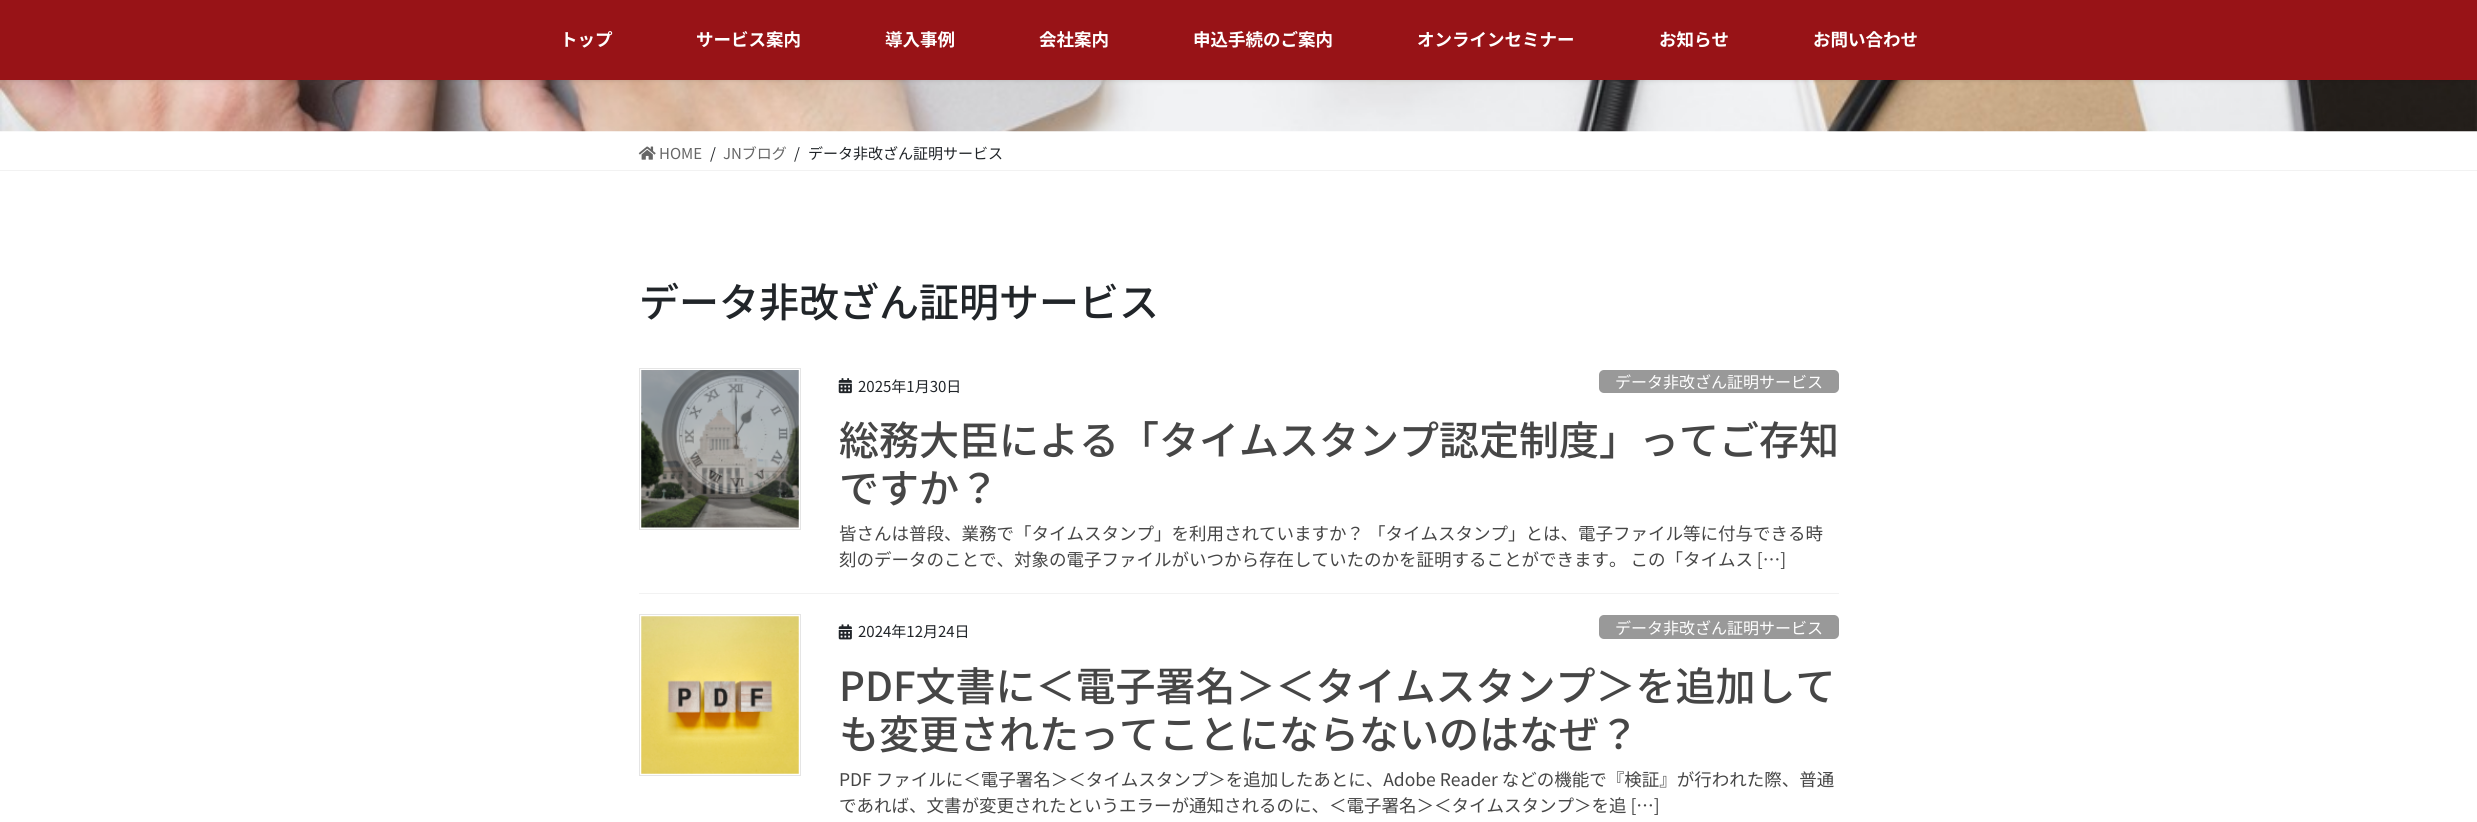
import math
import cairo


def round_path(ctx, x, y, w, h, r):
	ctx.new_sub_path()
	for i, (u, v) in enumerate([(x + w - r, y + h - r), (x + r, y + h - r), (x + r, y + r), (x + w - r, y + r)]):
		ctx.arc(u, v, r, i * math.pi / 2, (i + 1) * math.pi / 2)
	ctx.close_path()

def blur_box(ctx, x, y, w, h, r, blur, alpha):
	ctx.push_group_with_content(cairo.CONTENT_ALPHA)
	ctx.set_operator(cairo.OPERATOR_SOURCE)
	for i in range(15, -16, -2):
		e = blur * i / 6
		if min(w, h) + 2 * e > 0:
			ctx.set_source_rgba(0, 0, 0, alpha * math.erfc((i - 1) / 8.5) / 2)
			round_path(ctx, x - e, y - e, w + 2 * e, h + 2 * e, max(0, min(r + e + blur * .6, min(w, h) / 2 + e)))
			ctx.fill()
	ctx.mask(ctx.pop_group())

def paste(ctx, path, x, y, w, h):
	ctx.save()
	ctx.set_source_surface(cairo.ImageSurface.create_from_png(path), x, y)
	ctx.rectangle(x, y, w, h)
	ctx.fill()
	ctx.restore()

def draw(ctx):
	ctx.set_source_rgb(1, 1, 1)
	ctx.paint()
	paste(ctx, 'media/1.png', 0, 80, 2477, 52)
	ctx.set_source_rgb(0, 0, 0)
	blur_box(ctx, 0, 1, 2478, 80, 0, 2, 0.1)
	ctx.set_source_rgb(0.596, 0.075, 0.09)
	ctx.rectangle(0, 0, 2477, 80)
	ctx.fill()
	ctx.select_font_face('Noto Sans JP', cairo.FONT_SLANT_NORMAL, cairo.FONT_WEIGHT_BOLD)
	ctx.set_font_size(17.5)
	ctx.set_source_rgb(1, 1, 1)
	for x, y, s in [
		(560, 46, 'トップ'),
		(696, 46, 'サービス案内'),
		(885, 46, '導入事例'),
		(1039, 46, '会社案内'),
		(1193, 46, '申込手続のご案内'),
		(1417, 46, 'オンラインセミナー'),
		(1659, 46, 'お知らせ'),
		(1813, 46, 'お問い合わせ'),
	]:
		ctx.move_to(x, y)
		ctx.show_text(s)
	ctx.set_source_rgb(0.949, 0.949, 0.949)
	ctx.rectangle(0, 170, 2477, 1)
	ctx.fill()
	paste(ctx, 'media/2.png', 638, 146, 18, 14)
	ctx.select_font_face('Noto Sans JP')
	ctx.set_font_size(15)
	ctx.set_source_rgb(0.4, 0.4, 0.4)
	ctx.move_to(659, 159)
	ctx.show_text('HOME')
	ctx.set_source_rgb(0.129, 0.145, 0.161)
	ctx.move_to(710, 159)
	ctx.show_text('/')
	ctx.set_source_rgb(0.4, 0.4, 0.4)
	ctx.move_to(723, 159)
	ctx.show_text('JNブログ')
	ctx.set_source_rgb(0.129, 0.145, 0.161)
	ctx.move_to(794, 159)
	ctx.show_text('/')
	ctx.move_to(808, 159)
	ctx.show_text('データ非改ざん証明サービス')
	ctx.select_font_face('Noto Sans JP Medium')
	ctx.set_font_size(40)
	ctx.move_to(639, 317)
	ctx.show_text('データ非改ざん証明サービス')
	ctx.set_source_rgb(0.949, 0.949, 0.949)
	ctx.rectangle(639, 593, 1200, 1)
	ctx.fill()
	ctx.rectangle(639.5, 368.5, 161, 161)
	ctx.set_source_rgb(0.898, 0.898, 0.898)
	ctx.set_line_width(1)
	ctx.stroke()
	paste(ctx, 'media/3.png', 641, 370, 158, 158)
	paste(ctx, 'media/4.png', 838, 378, 14, 16)
	ctx.select_font_face('Noto Sans JP')
	ctx.set_font_size(15)
	ctx.set_source_rgb(0.129, 0.145, 0.161)
	ctx.move_to(858, 392)
	ctx.show_text('2025年1月30日')
	ctx.set_source_rgb(0.6, 0.6, 0.6)
	round_path(ctx, 1599, 370, 240, 23, 5)
	ctx.fill()
	ctx.set_font_size(16)
	ctx.set_source_rgb(1, 1, 1)
	ctx.move_to(1615, 388)
	ctx.show_text('データ非改ざん証明サービス')
	ctx.select_font_face('Noto Sans JP Medium')
	ctx.set_font_size(40)
	ctx.set_source_rgb(0.275, 0.275, 0.275)
	ctx.move_to(839, 455)
	ctx.show_text('総務大臣による「タイムスタンプ認定制度」ってご存知')
	ctx.move_to(839, 503)
	ctx.show_text('ですか？')
	ctx.select_font_face('Noto Sans JP')
	ctx.set_font_size(17.5)
	ctx.move_to(839, 540)
	ctx.show_text('皆さんは普段、業務で「タイムスタンプ」を利用されていますか？ 「タイムスタンプ」とは、電子ファイル等に付与できる時')
	ctx.move_to(839, 566)
	ctx.show_text('刻のデータのことで、対象の電子ファイルがいつから存在していたのかを証明することができます。 この「タイムス […]')
	ctx.rectangle(639.5, 614.5, 161, 161)
	ctx.set_source_rgb(0.898, 0.898, 0.898)
	ctx.stroke()
	paste(ctx, 'media/5.png', 641, 616, 158, 158)
	paste(ctx, 'media/6.png', 838, 624, 14, 16)
	ctx.set_font_size(15)
	ctx.set_source_rgb(0.129, 0.145, 0.161)
	ctx.move_to(858, 637)
	ctx.show_text('2024年12月24日')
	ctx.set_source_rgb(0.6, 0.6, 0.6)
	round_path(ctx, 1599, 615, 240, 24, 5)
	ctx.fill()
	ctx.set_font_size(16)
	ctx.set_source_rgb(1, 1, 1)
	ctx.move_to(1615, 634)
	ctx.show_text('データ非改ざん証明サービス')
	ctx.select_font_face('Noto Sans JP Medium')
	ctx.set_font_size(40)
	ctx.set_source_rgb(0.275, 0.275, 0.275)
	ctx.move_to(839, 701)
	ctx.show_text('PDF文書に＜電子署名＞＜タイムスタンプ＞を追加して')
	ctx.move_to(839, 749)
	ctx.show_text('も変更されたってことにならないのはなぜ？')
	ctx.select_font_face('Noto Sans JP')
	ctx.set_font_size(17.5)
	ctx.move_to(839, 786)
	ctx.show_text('PDF ファイルに＜電子署名＞＜タイムスタンプ＞を追加したあとに、Adobe Reader などの機能で『検証』が行われた際、普通')
	ctx.move_to(839, 812)
	ctx.show_text('であれば、文書が変更されたというエラーが通知されるのに、＜電子署名＞＜タイムスタンプ＞を追 […]')


surface = cairo.ImageSurface(cairo.FORMAT_RGB24, 2477, 822)
ctx = cairo.Context(surface)
options = cairo.FontOptions()
options.set_hint_metrics(cairo.HINT_METRICS_OFF)
options.set_hint_style(cairo.HINT_STYLE_NONE)
ctx.set_font_options(options)
ctx.set_miter_limit(4)
draw(ctx)
surface.write_to_png('image.png')
